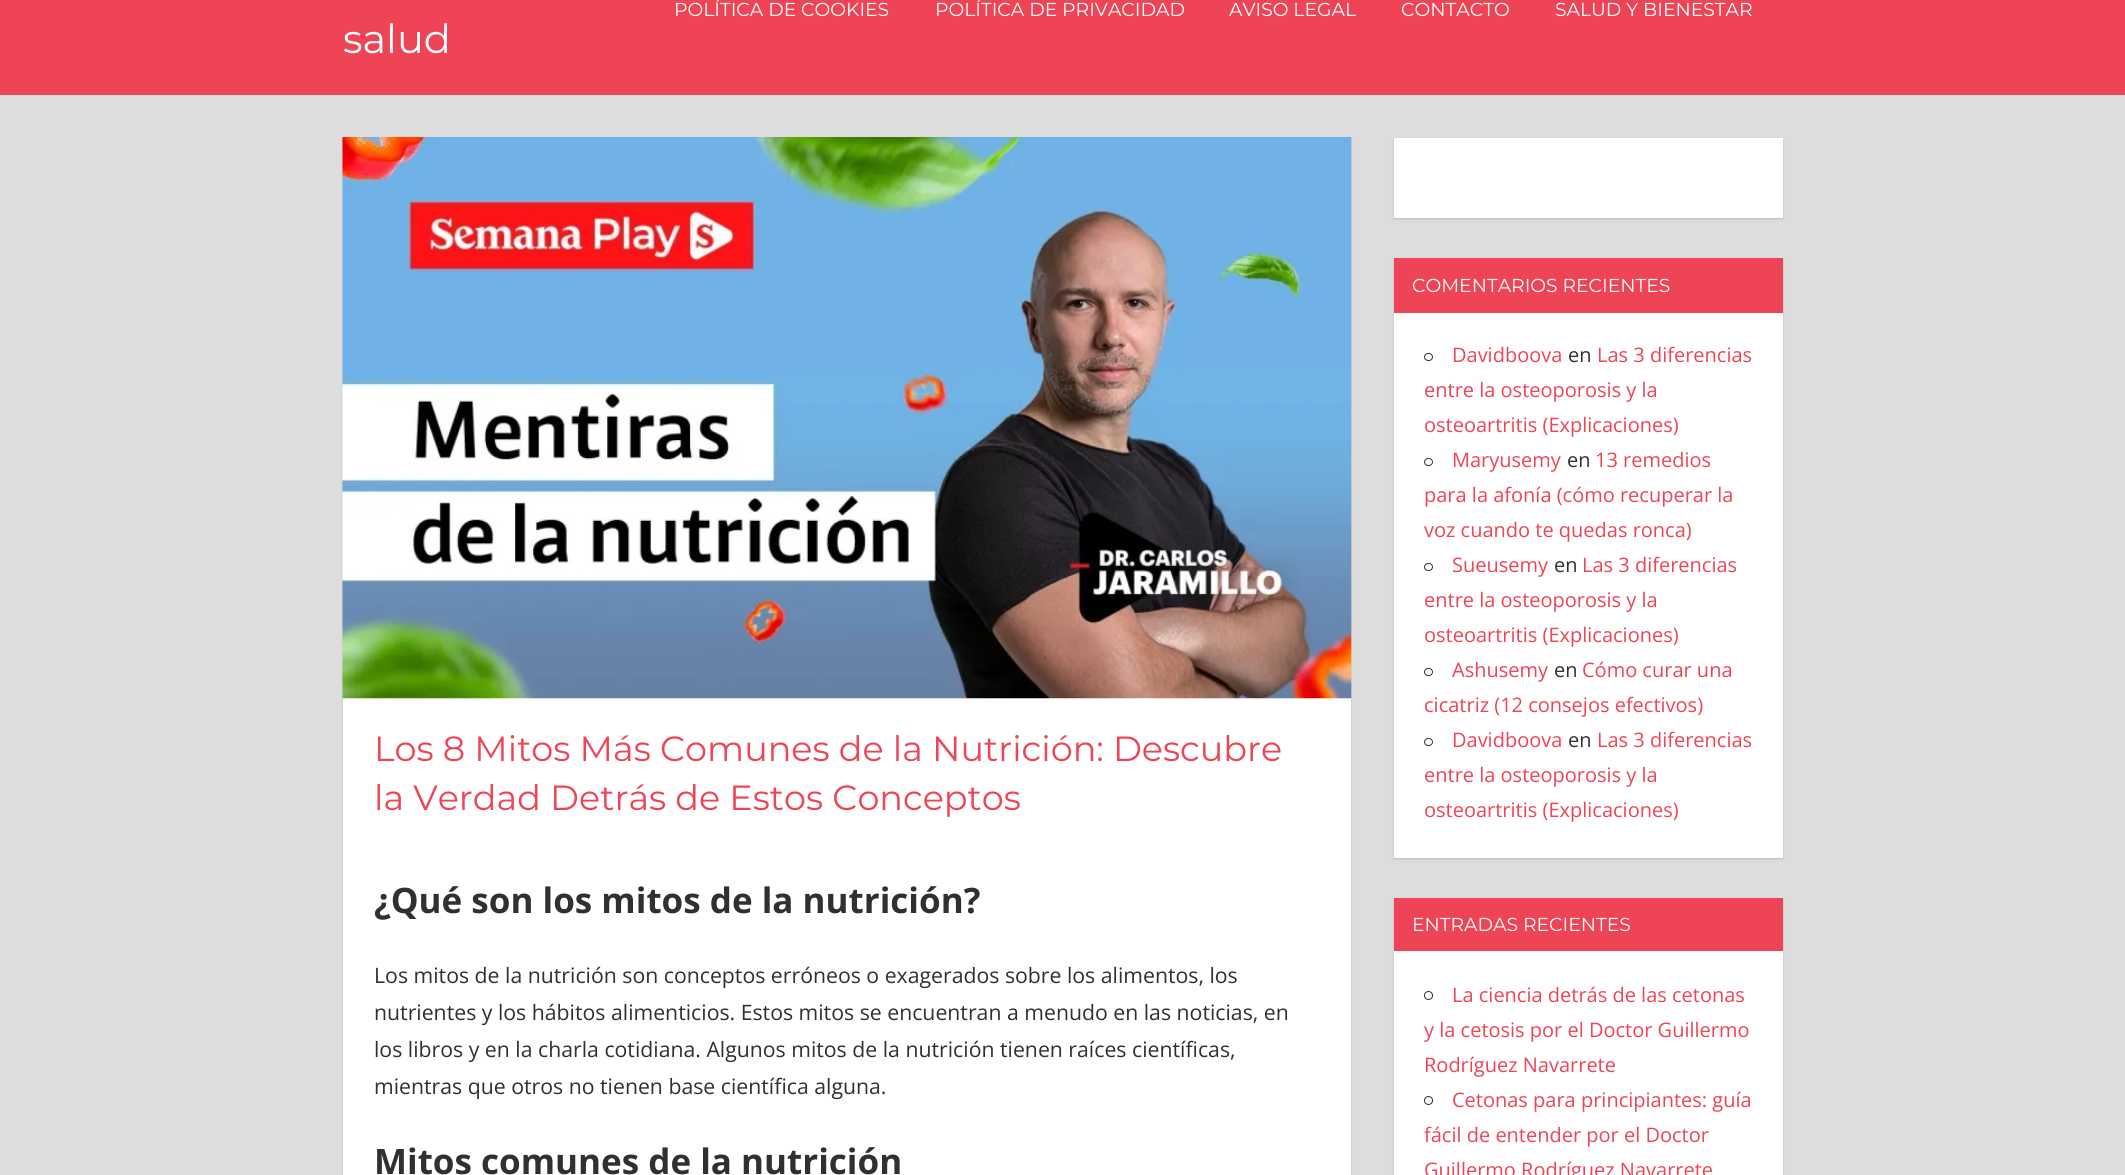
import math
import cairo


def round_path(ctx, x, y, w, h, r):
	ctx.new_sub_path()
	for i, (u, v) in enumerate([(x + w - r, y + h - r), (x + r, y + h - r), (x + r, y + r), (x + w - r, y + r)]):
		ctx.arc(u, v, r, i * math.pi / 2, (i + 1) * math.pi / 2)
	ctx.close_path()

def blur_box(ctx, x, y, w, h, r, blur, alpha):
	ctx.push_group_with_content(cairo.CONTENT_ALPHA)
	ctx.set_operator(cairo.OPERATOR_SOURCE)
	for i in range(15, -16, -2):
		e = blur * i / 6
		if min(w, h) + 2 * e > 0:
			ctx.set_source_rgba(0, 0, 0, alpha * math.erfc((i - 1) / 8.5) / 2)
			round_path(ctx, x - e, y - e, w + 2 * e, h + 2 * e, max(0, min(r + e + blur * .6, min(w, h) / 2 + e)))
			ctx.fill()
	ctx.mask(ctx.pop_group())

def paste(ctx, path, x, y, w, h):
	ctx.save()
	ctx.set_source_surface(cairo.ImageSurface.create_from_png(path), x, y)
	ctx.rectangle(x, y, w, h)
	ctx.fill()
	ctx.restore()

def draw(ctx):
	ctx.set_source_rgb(0.867, 0.867, 0.867)
	ctx.paint()
	ctx.set_source_rgb(0.933, 0.267, 0.333)
	ctx.rectangle(0, 0, 2125, 95)
	ctx.fill()
	ctx.select_font_face('Montserrat')
	ctx.set_font_size(18.75)
	ctx.set_source_rgb(1, 1, 1)
	for x, y, s in [
		(674, 16, 'POLÍTICA DE COOKIES'),
		(935, 16, 'POLÍTICA DE PRIVACIDAD'),
		(1229, 16, 'AVISO LEGAL'),
		(1401, 16, 'CONTACTO'),
		(1555, 16, 'SALUD Y BIENESTAR'),
	]:
		ctx.move_to(x, y)
		ctx.show_text(s)
	ctx.set_font_size(40)
	ctx.move_to(343, 53)
	ctx.show_text('salud')
	ctx.set_source_rgb(0.733, 0.733, 0.733)
	blur_box(ctx, 343, 139, 1008, 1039, 0, 1, 1)
	ctx.set_source_rgb(1, 1, 1)
	ctx.rectangle(343, 698, 1008, 477)
	ctx.fill()
	paste(ctx, 'media/1.png', 342, 137, 1010, 562)
	ctx.set_font_size(35)
	ctx.set_source_rgb(0.933, 0.267, 0.333)
	ctx.move_to(374, 761)
	ctx.show_text('Los 8 Mitos Más Comunes de la Nutrición: Descubre')
	ctx.move_to(374, 810)
	ctx.show_text('la Verdad Detrás de Estos Conceptos')
	ctx.select_font_face('Open Sans', cairo.FONT_SLANT_NORMAL, cairo.FONT_WEIGHT_BOLD)
	ctx.set_source_rgb(0.188, 0.188, 0.188)
	ctx.move_to(374, 913)
	ctx.show_text('¿Qué son los mitos de la nutrición?')
	ctx.select_font_face('Open Sans')
	ctx.set_font_size(21.25)
	for x, y, s in [
		(374, 983, 'Los mitos de la nutrición son conceptos erróneos o exagerados sobre los alimentos, los'),
		(374, 1020, 'nutrientes y los hábitos alimenticios. Estos mitos se encuentran a menudo en las noticias, en'),
		(374, 1057, 'los libros y en la charla cotidiana. Algunos mitos de la nutrición tienen raíces científicas,'),
		(374, 1094, 'mientras que otros no tienen base científica alguna.'),
	]:
		ctx.move_to(x, y)
		ctx.show_text(s)
	ctx.select_font_face('Open Sans', cairo.FONT_SLANT_NORMAL, cairo.FONT_WEIGHT_BOLD)
	ctx.set_font_size(35)
	ctx.move_to(374, 1174)
	ctx.show_text('Mitos comunes de la nutrición')
	ctx.set_source_rgb(0.733, 0.733, 0.733)
	blur_box(ctx, 1394, 139, 389, 80, 0, 1, 1)
	ctx.set_source_rgb(1, 1, 1)
	ctx.rectangle(1394, 138, 389, 80)
	ctx.fill()
	ctx.set_source_rgb(0.733, 0.733, 0.733)
	blur_box(ctx, 1394, 259, 389, 600, 0, 1, 1)
	ctx.set_source_rgb(1, 1, 1)
	ctx.rectangle(1394, 313, 389, 545)
	ctx.fill()
	ctx.set_source_rgb(0.933, 0.267, 0.333)
	ctx.rectangle(1394, 258, 389, 55)
	ctx.fill()
	ctx.select_font_face('Montserrat')
	ctx.set_font_size(18.75)
	ctx.set_source_rgb(1, 1, 1)
	ctx.move_to(1412, 292)
	ctx.show_text('COMENTARIOS RECIENTES')
	round_path(ctx, 1424.5, 353.5, 8, 7, 3.5)
	ctx.set_source_rgb(0.188, 0.188, 0.188)
	ctx.set_line_width(1)
	ctx.stroke()
	ctx.select_font_face('Open Sans')
	ctx.set_font_size(20)
	ctx.set_source_rgb(0.933, 0.267, 0.333)
	ctx.move_to(1452, 362)
	ctx.show_text('Davidboova')
	ctx.set_source_rgb(0.188, 0.188, 0.188)
	ctx.move_to(1568, 362)
	ctx.show_text('en')
	ctx.set_source_rgb(0.933, 0.267, 0.333)
	for x, y, s in [
		(1597, 362, 'Las 3 diferencias'),
		(1424, 397, 'entre la osteoporosis y la'),
		(1424, 432, 'osteoartritis (Explicaciones)'),
	]:
		ctx.move_to(x, y)
		ctx.show_text(s)
	round_path(ctx, 1424.5, 458.5, 8, 7, 3.5)
	ctx.set_source_rgb(0.188, 0.188, 0.188)
	ctx.stroke()
	ctx.set_source_rgb(0.933, 0.267, 0.333)
	ctx.move_to(1452, 467)
	ctx.show_text('Maryusemy')
	ctx.set_source_rgb(0.188, 0.188, 0.188)
	ctx.move_to(1567, 467)
	ctx.show_text('en')
	ctx.set_source_rgb(0.933, 0.267, 0.333)
	for x, y, s in [
		(1595, 467, '13 remedios'),
		(1424, 502, 'para la afonía (cómo recuperar la'),
		(1424, 537, 'voz cuando te quedas ronca)'),
	]:
		ctx.move_to(x, y)
		ctx.show_text(s)
	round_path(ctx, 1424.5, 563.5, 8, 7, 3.5)
	ctx.set_source_rgb(0.188, 0.188, 0.188)
	ctx.stroke()
	ctx.set_source_rgb(0.933, 0.267, 0.333)
	ctx.move_to(1452, 572)
	ctx.show_text('Sueusemy')
	ctx.set_source_rgb(0.188, 0.188, 0.188)
	ctx.move_to(1554, 572)
	ctx.show_text('en')
	ctx.set_source_rgb(0.933, 0.267, 0.333)
	for x, y, s in [
		(1582, 572, 'Las 3 diferencias'),
		(1424, 607, 'entre la osteoporosis y la'),
		(1424, 642, 'osteoartritis (Explicaciones)'),
	]:
		ctx.move_to(x, y)
		ctx.show_text(s)
	round_path(ctx, 1424.5, 668.5, 8, 7, 3.5)
	ctx.set_source_rgb(0.188, 0.188, 0.188)
	ctx.stroke()
	ctx.set_source_rgb(0.933, 0.267, 0.333)
	ctx.move_to(1452, 677)
	ctx.show_text('Ashusemy')
	ctx.set_source_rgb(0.188, 0.188, 0.188)
	ctx.move_to(1554, 677)
	ctx.show_text('en')
	ctx.set_source_rgb(0.933, 0.267, 0.333)
	ctx.move_to(1582, 677)
	ctx.show_text('Cómo curar una')
	ctx.move_to(1424, 712)
	ctx.show_text('cicatriz (12 consejos efectivos)')
	round_path(ctx, 1424.5, 738.5, 8, 7, 3.5)
	ctx.set_source_rgb(0.188, 0.188, 0.188)
	ctx.stroke()
	ctx.set_source_rgb(0.933, 0.267, 0.333)
	ctx.move_to(1452, 747)
	ctx.show_text('Davidboova')
	ctx.set_source_rgb(0.188, 0.188, 0.188)
	ctx.move_to(1568, 747)
	ctx.show_text('en')
	ctx.set_source_rgb(0.933, 0.267, 0.333)
	for x, y, s in [
		(1597, 747, 'Las 3 diferencias'),
		(1424, 782, 'entre la osteoporosis y la'),
		(1424, 817, 'osteoartritis (Explicaciones)'),
	]:
		ctx.move_to(x, y)
		ctx.show_text(s)
	ctx.set_source_rgb(0.733, 0.733, 0.733)
	blur_box(ctx, 1394, 899, 389, 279, 0, 1, 1)
	ctx.set_source_rgb(1, 1, 1)
	ctx.rectangle(1394, 951, 389, 224)
	ctx.fill()
	ctx.set_source_rgb(0.933, 0.267, 0.333)
	ctx.rectangle(1394, 898, 389, 53)
	ctx.fill()
	ctx.select_font_face('Montserrat')
	ctx.set_font_size(18.75)
	ctx.set_source_rgb(1, 1, 1)
	ctx.move_to(1412, 931)
	ctx.show_text('ENTRADAS RECIENTES')
	ctx.new_path()
	ctx.arc(1428.5, 995.5, 4, 0, 2 * math.pi)
	ctx.set_source_rgb(0.188, 0.188, 0.188)
	ctx.stroke()
	ctx.select_font_face('Open Sans')
	ctx.set_font_size(20)
	ctx.set_source_rgb(0.933, 0.267, 0.333)
	for x, y, s in [
		(1452, 1002, 'La ciencia detrás de las cetonas'),
		(1424, 1037, 'y la cetosis por el Doctor Guillermo'),
		(1424, 1072, 'Rodríguez Navarrete'),
	]:
		ctx.move_to(x, y)
		ctx.show_text(s)
	ctx.new_path()
	ctx.arc(1428.5, 1100.5, 4, 0, 2 * math.pi)
	ctx.set_source_rgb(0.188, 0.188, 0.188)
	ctx.stroke()
	ctx.set_source_rgb(0.933, 0.267, 0.333)
	for x, y, s in [
		(1452, 1107, 'Cetonas para principiantes: guía'),
		(1424, 1142, 'fácil de entender por el Doctor'),
		(1424, 1177, 'Guillermo Rodríguez Navarrete'),
	]:
		ctx.move_to(x, y)
		ctx.show_text(s)


surface = cairo.ImageSurface(cairo.FORMAT_RGB24, 2125, 1175)
ctx = cairo.Context(surface)
options = cairo.FontOptions()
options.set_hint_metrics(cairo.HINT_METRICS_OFF)
options.set_hint_style(cairo.HINT_STYLE_NONE)
ctx.set_font_options(options)
ctx.set_miter_limit(4)
draw(ctx)
surface.write_to_png('image.png')
